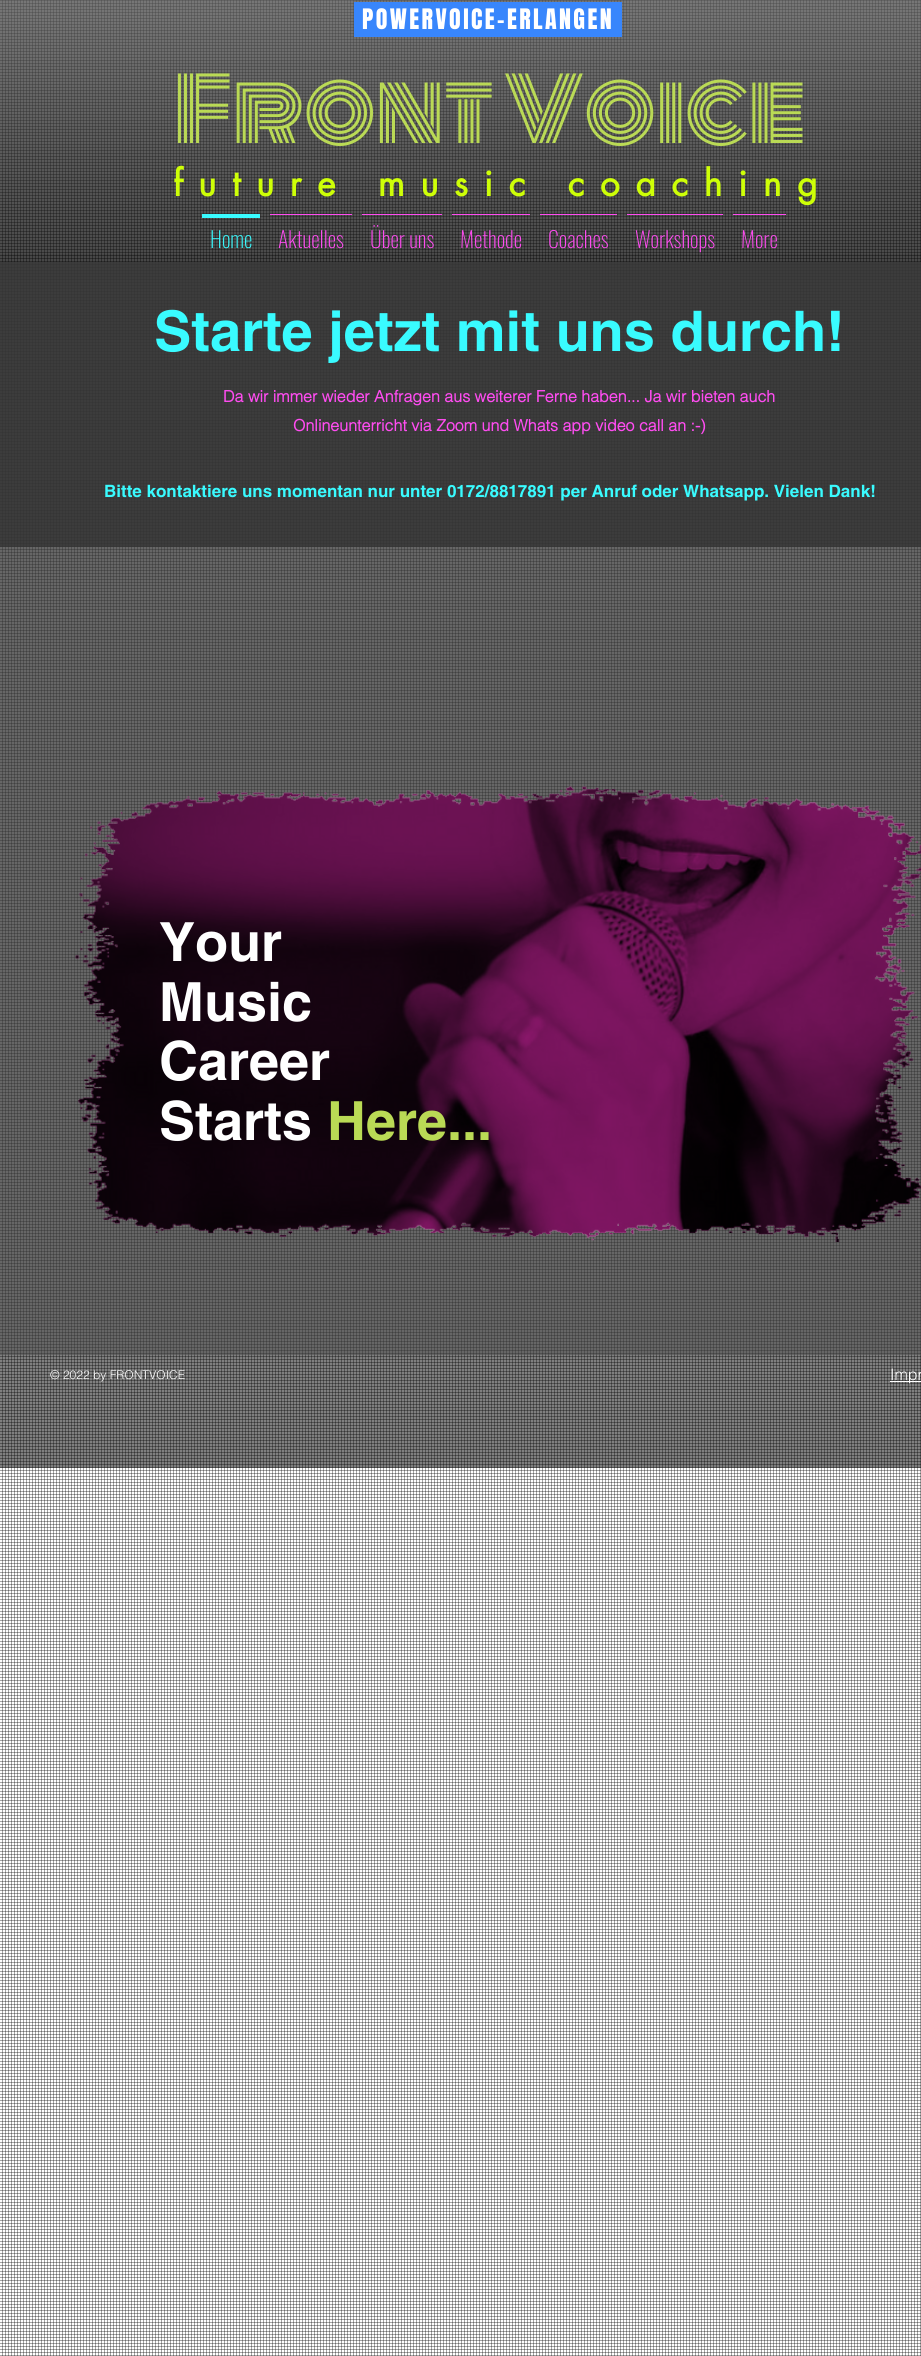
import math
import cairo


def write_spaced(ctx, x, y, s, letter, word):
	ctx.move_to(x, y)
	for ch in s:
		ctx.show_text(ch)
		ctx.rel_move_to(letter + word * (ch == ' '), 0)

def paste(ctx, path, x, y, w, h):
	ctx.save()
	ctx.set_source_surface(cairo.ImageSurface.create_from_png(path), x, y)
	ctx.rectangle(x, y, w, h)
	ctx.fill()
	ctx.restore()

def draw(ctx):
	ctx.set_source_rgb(1, 1, 1)
	ctx.paint()
	paste(ctx, 'media/1.png', 0, 0, 921, 2356)
	ctx.set_source_rgba(0, 0, 0, 0.72)
	ctx.rectangle(0, 0, 921, 262)
	ctx.fill()
	paste(ctx, 'media/2.png', 0, 0, 921, 254)
	ctx.set_source_rgb(0.22, 0.525, 0.988)
	ctx.rectangle(354, 2, 268, 35)
	ctx.fill()
	ctx.select_font_face('Anton')
	ctx.set_font_size(24)
	ctx.set_source_rgb(1, 1, 1)
	write_spaced(ctx, 362, 29, 'POWERVOICE-ERLANGEN', 2.4, 0)
	ctx.select_font_face('Monoton')
	ctx.set_font_size(86)
	ctx.set_source_rgb(0.729, 0.855, 0.333)
	ctx.move_to(174, 143)
	ctx.show_text('Front Voice')
	ctx.select_font_face('futura', cairo.FONT_SLANT_NORMAL, cairo.FONT_WEIGHT_BOLD)
	ctx.set_font_size(35)
	ctx.set_source_rgb(0.808, 1, 0.031)
	write_spaced(ctx, 173, 196, 'future music coaching', 15.75, 0)
	ctx.set_source_rgb(0.224, 0.984, 1)
	ctx.rectangle(202, 214, 58, 4)
	ctx.fill()
	ctx.select_font_face('Oswald ExtraLight')
	ctx.set_font_size(22)
	ctx.move_to(210, 248)
	ctx.show_text('Home')
	ctx.set_source_rgb(1, 0.298, 0.945)
	ctx.rectangle(270, 214, 82, 1)
	ctx.fill()
	ctx.move_to(278, 248)
	ctx.show_text('Aktuelles')
	ctx.rectangle(362, 214, 80, 1)
	ctx.fill()
	ctx.move_to(370, 248)
	ctx.show_text('Über uns')
	ctx.rectangle(452, 214, 78, 1)
	ctx.fill()
	ctx.move_to(460, 248)
	ctx.show_text('Methode')
	ctx.rectangle(540, 214, 77, 1)
	ctx.fill()
	ctx.move_to(548, 248)
	ctx.show_text('Coaches')
	ctx.rectangle(627, 214, 96, 1)
	ctx.fill()
	ctx.move_to(635, 248)
	ctx.show_text('Workshops')
	ctx.rectangle(733, 214, 53, 1)
	ctx.fill()
	ctx.move_to(741, 248)
	ctx.show_text('More')
	ctx.set_source_rgba(0.2, 0.2, 0.2, 0.75)
	ctx.rectangle(0, 262, 921, 1093)
	ctx.fill()
	ctx.set_source_rgba(0.2, 0.2, 0.2, 0.8)
	ctx.rectangle(0, 262, 921, 196)
	ctx.fill()
	ctx.select_font_face('helvetica', cairo.FONT_SLANT_NORMAL, cairo.FONT_WEIGHT_BOLD)
	ctx.set_font_size(56)
	ctx.set_source_rgb(0.224, 0.984, 1)
	ctx.move_to(154, 351)
	ctx.show_text('Starte jetzt mit uns durch!')
	ctx.select_font_face('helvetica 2', cairo.FONT_SLANT_NORMAL, cairo.FONT_WEIGHT_BOLD)
	ctx.set_font_size(16)
	ctx.set_source_rgb(1, 0.298, 0.945)
	ctx.move_to(223, 402)
	ctx.show_text('Da wir immer wieder Anfragen aus weiterer Ferne haben... Ja wir bieten auch')
	ctx.move_to(293, 431)
	ctx.show_text('Onlineunterricht via Zoom und Whats app video call an :-)')
	ctx.set_source_rgba(0.2, 0.2, 0.2, 0.8)
	ctx.rectangle(0, 458, 921, 89)
	ctx.fill()
	ctx.select_font_face('helvetica', cairo.FONT_SLANT_NORMAL, cairo.FONT_WEIGHT_BOLD)
	ctx.set_font_size(17)
	ctx.set_source_rgb(0.224, 0.984, 1)
	ctx.move_to(104, 497)
	ctx.show_text('Bitte kontaktiere uns momentan nur unter 0172/8817891 per Anruf oder Whatsapp. Vielen Dank!')
	paste(ctx, 'media/3.png', 75, 786, 846, 456)
	ctx.set_font_size(54)
	ctx.set_source_rgb(1, 1, 1)
	for x, y, s in [
		(159, 961, 'Your'),
		(159, 1021, 'Music'),
		(159, 1080, 'Career'),
		(159, 1140, 'Starts'),
	]:
		ctx.move_to(x, y)
		ctx.show_text(s)
	ctx.set_source_rgb(0.729, 0.855, 0.333)
	ctx.move_to(327, 1140)
	ctx.show_text('Here...')
	ctx.set_source_rgba(0, 0, 0, 0.5)
	ctx.rectangle(0, 1355, 921, 113)
	ctx.fill()
	ctx.select_font_face('helvetica Light')
	ctx.set_font_size(12)
	ctx.set_source_rgb(1, 1, 1)
	ctx.move_to(50, 1379)
	ctx.show_text('© 2022 by FRONTVOICE')
	ctx.rectangle(890, 1381, 31, 1)
	ctx.fill()
	ctx.set_font_size(16)
	ctx.move_to(890, 1380)
	ctx.show_text('Impr')


surface = cairo.ImageSurface(cairo.FORMAT_RGB24, 921, 2356)
ctx = cairo.Context(surface)
options = cairo.FontOptions()
options.set_hint_metrics(cairo.HINT_METRICS_OFF)
options.set_hint_style(cairo.HINT_STYLE_NONE)
ctx.set_font_options(options)
ctx.set_miter_limit(4)
draw(ctx)
surface.write_to_png('image.png')
